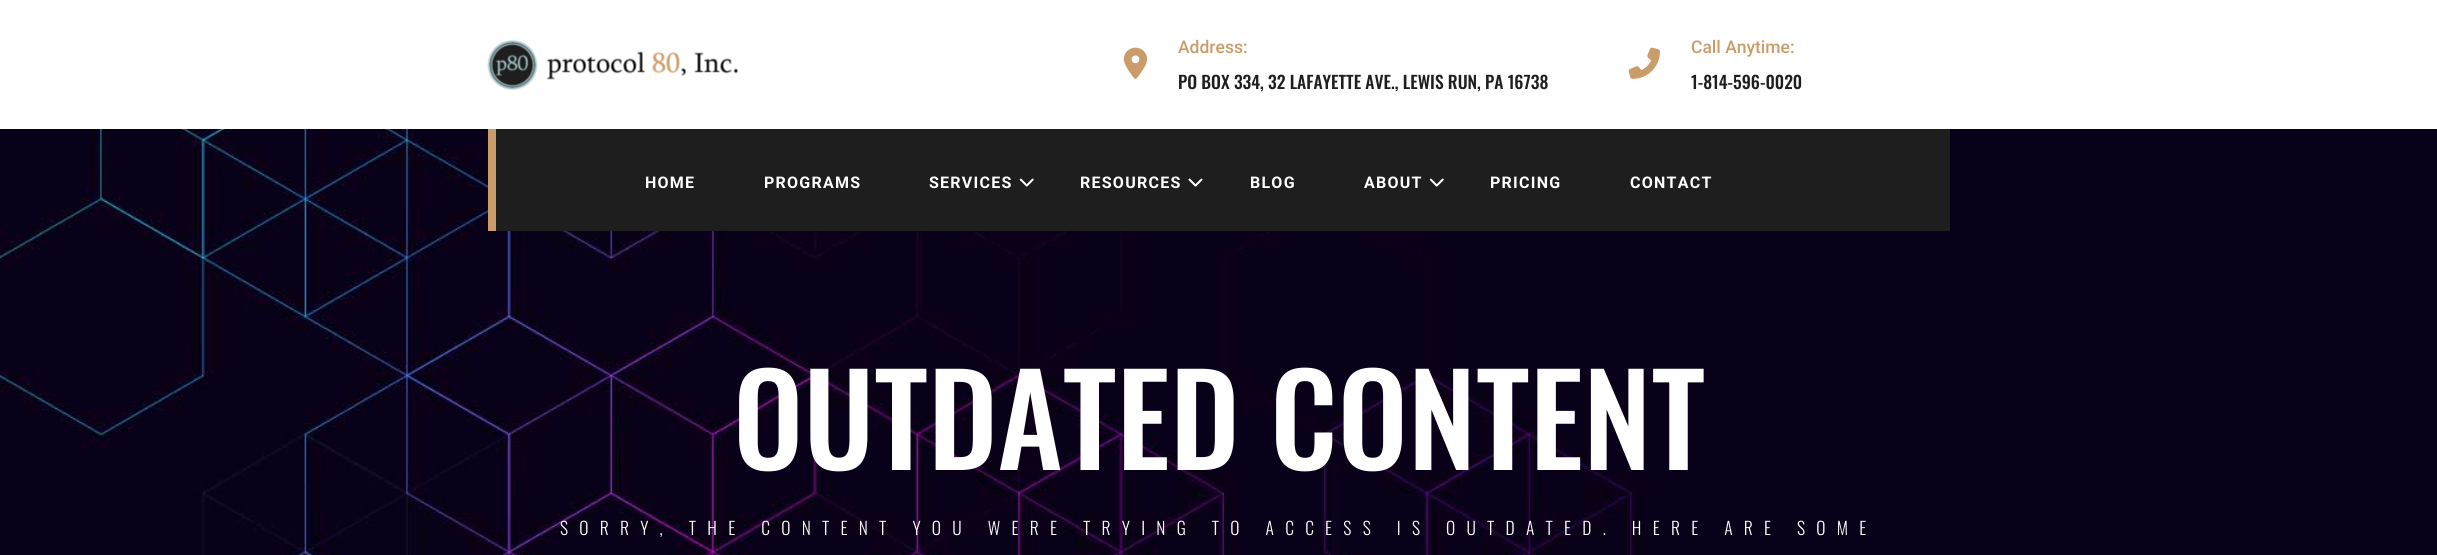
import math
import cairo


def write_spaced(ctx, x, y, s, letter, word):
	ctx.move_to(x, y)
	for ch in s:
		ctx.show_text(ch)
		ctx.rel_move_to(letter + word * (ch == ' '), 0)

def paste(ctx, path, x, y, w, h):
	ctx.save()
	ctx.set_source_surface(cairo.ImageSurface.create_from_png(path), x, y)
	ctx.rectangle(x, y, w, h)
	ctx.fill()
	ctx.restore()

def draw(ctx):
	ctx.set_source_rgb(1, 1, 1)
	ctx.paint()
	paste(ctx, 'media/1.png', 487, 39, 251, 51)
	paste(ctx, 'media/2.png', 1123, 47, 25, 32)
	ctx.select_font_face('Roboto Medium')
	ctx.set_font_size(17.5)
	ctx.set_source_rgb(0.792, 0.612, 0.416)
	ctx.move_to(1178, 53)
	ctx.show_text('Address:')
	ctx.select_font_face('Oswald Medium')
	ctx.set_source_rgb(0.118, 0.118, 0.118)
	ctx.move_to(1178, 89)
	ctx.show_text('PO BOX 334, 32 LAFAYETTE AVE., LEWIS RUN, PA 16738')
	paste(ctx, 'media/3.png', 1628, 47, 32, 32)
	ctx.select_font_face('Roboto Medium')
	ctx.set_source_rgb(0.792, 0.612, 0.416)
	ctx.move_to(1691, 53)
	ctx.show_text('Call Anytime:')
	ctx.select_font_face('Oswald Medium')
	ctx.set_source_rgb(0.118, 0.118, 0.118)
	ctx.move_to(1691, 89)
	ctx.show_text('1-814-596-0020')
	paste(ctx, 'media/6.png', 0, 129, 2437, 426)
	ctx.rectangle(496, 129, 1454, 102)
	ctx.fill()
	ctx.set_source_rgb(0.792, 0.612, 0.416)
	ctx.rectangle(488, 129, 8, 102)
	ctx.fill()
	ctx.select_font_face('Roboto', cairo.FONT_SLANT_NORMAL, cairo.FONT_WEIGHT_BOLD)
	ctx.set_font_size(16)
	ctx.set_source_rgb(1, 1, 1)
	for x, y, s in [
		(645, 188, 'HOME'),
		(764, 188, 'PROGRAMS'),
		(929, 188, 'SERVICES'),
	]:
		write_spaced(ctx, x, y, s, 1.25, 0)
	paste(ctx, 'media/4.png', 1019, 178, 15, 9)
	write_spaced(ctx, 1080, 188, 'RESOURCES', 1.25, 0)
	paste(ctx, 'media/5.png', 1188, 178, 15, 9)
	write_spaced(ctx, 1250, 188, 'BLOG', 1.25, 0)
	write_spaced(ctx, 1364, 188, 'ABOUT', 1.25, 0)
	paste(ctx, 'media/4.png', 1429, 178, 15, 9)
	write_spaced(ctx, 1490, 188, 'PRICING', 1.25, 0)
	write_spaced(ctx, 1630, 188, 'CONTACT', 1.25, 0)
	ctx.select_font_face('Oswald Medium')
	ctx.set_font_size(125)
	ctx.move_to(733, 470)
	ctx.show_text('OUTDATED CONTENT')
	ctx.select_font_face('Oswald Light')
	ctx.set_font_size(17.5)
	write_spaced(ctx, 560, 535, 'SORRY, THE CONTENT YOU WERE TRYING TO ACCESS IS OUTDATED. HERE ARE SOME', 11.25, 0)


surface = cairo.ImageSurface(cairo.FORMAT_RGB24, 2437, 555)
ctx = cairo.Context(surface)
options = cairo.FontOptions()
options.set_hint_metrics(cairo.HINT_METRICS_OFF)
options.set_hint_style(cairo.HINT_STYLE_NONE)
ctx.set_font_options(options)
ctx.set_miter_limit(4)
draw(ctx)
surface.write_to_png('image.png')
